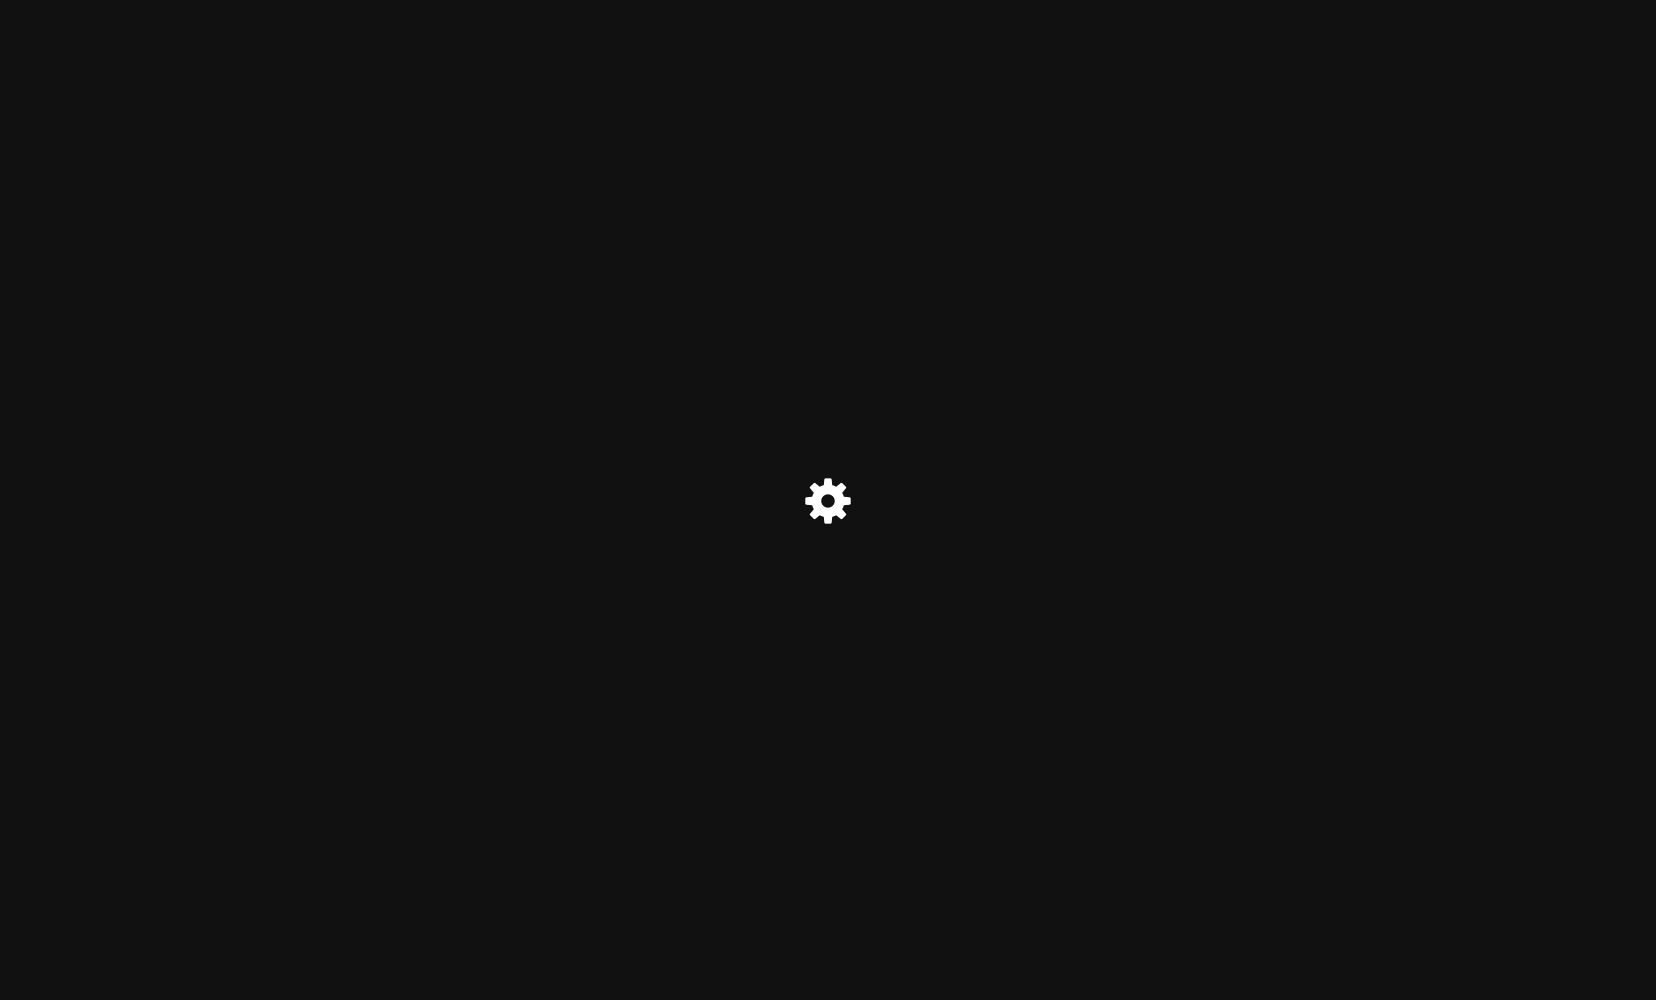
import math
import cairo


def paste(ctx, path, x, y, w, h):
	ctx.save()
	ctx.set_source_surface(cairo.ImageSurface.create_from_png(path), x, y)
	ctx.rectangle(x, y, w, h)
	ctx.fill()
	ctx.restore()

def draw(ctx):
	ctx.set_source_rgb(0.067, 0.067, 0.067)
	ctx.paint()
	paste(ctx, 'media/1.png', 805, 478, 46, 46)


surface = cairo.ImageSurface(cairo.FORMAT_RGB24, 1656, 1000)
ctx = cairo.Context(surface)
options = cairo.FontOptions()
options.set_hint_metrics(cairo.HINT_METRICS_OFF)
options.set_hint_style(cairo.HINT_STYLE_NONE)
ctx.set_font_options(options)
ctx.set_miter_limit(4)
draw(ctx)
surface.write_to_png('image.png')
